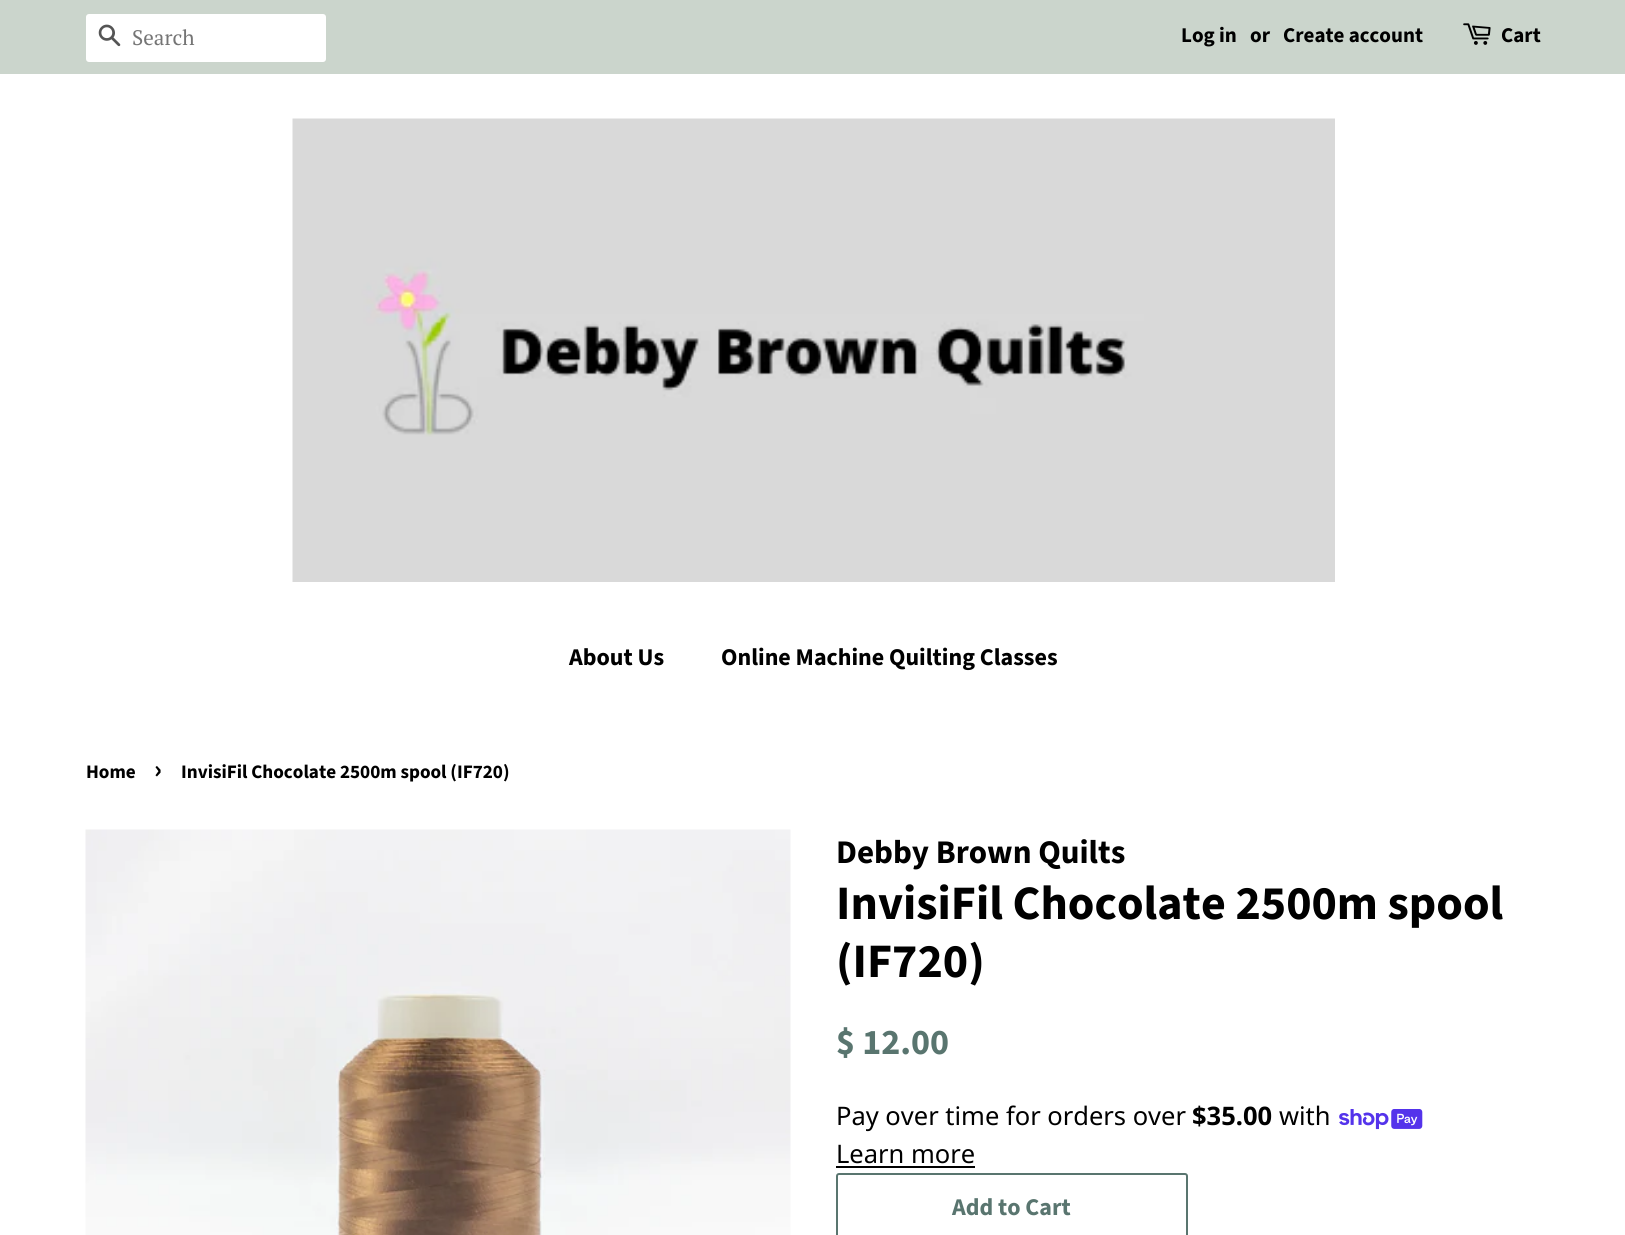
import math
import cairo


def round_path(ctx, x, y, w, h, r):
	ctx.new_sub_path()
	for i, (u, v) in enumerate([(x + w - r, y + h - r), (x + r, y + h - r), (x + r, y + r), (x + w - r, y + r)]):
		ctx.arc(u, v, r, i * math.pi / 2, (i + 1) * math.pi / 2)
	ctx.close_path()

def paste(ctx, path, x, y, w, h):
	ctx.save()
	ctx.set_source_surface(cairo.ImageSurface.create_from_png(path), x, y)
	ctx.rectangle(x, y, w, h)
	ctx.fill()
	ctx.restore()

def draw(ctx):
	ctx.set_source_rgb(1, 1, 1)
	ctx.paint()
	ctx.set_source_rgb(0.796, 0.835, 0.8)
	ctx.rectangle(0, 0, 1625, 74)
	ctx.fill()
	ctx.set_source_rgb(1, 1, 1)
	round_path(ctx, 86, 14, 240, 48, 3)
	ctx.fill()
	paste(ctx, 'media/1.png', 98, 24, 23, 23)
	ctx.select_font_face('PT Serif')
	ctx.set_font_size(21)
	ctx.set_source_rgb(0.459, 0.459, 0.459)
	ctx.move_to(132, 45)
	ctx.show_text('Search')
	ctx.select_font_face('Source Sans Pro', cairo.FONT_SLANT_NORMAL, cairo.FONT_WEIGHT_BOLD)
	ctx.set_source_rgb(0, 0, 0)
	for x, y, s in [
		(1181, 42, 'Log in'),
		(1250, 42, 'or'),
		(1283, 42, 'Create account'),
	]:
		ctx.move_to(x, y)
		ctx.show_text(s)
	paste(ctx, 'media/2.png', 1463, 23, 28, 22)
	ctx.move_to(1501, 42)
	ctx.show_text('Cart')
	paste(ctx, 'media/3.png', 292, 118, 1043, 464)
	ctx.set_font_size(24)
	ctx.move_to(569, 665)
	ctx.show_text('About Us')
	ctx.move_to(721, 665)
	ctx.show_text('Online Machine Quilting Classes')
	ctx.set_font_size(19.1)
	ctx.move_to(86, 778)
	ctx.show_text('Home')
	ctx.set_font_size(27)
	ctx.move_to(154, 778)
	ctx.show_text('›')
	ctx.set_font_size(19.1)
	ctx.move_to(181, 778)
	ctx.show_text('InvisiFil Chocolate 2500m spool (IF720)')
	paste(ctx, 'media/4.png', 85, 829, 706, 406)
	ctx.set_font_size(33)
	ctx.move_to(836, 863)
	ctx.show_text('Debby Brown Quilts')
	ctx.set_font_size(48)
	ctx.move_to(836, 919)
	ctx.show_text('InvisiFil Chocolate 2500m spool')
	ctx.move_to(836, 977)
	ctx.show_text('(IF720)')
	ctx.set_font_size(36)
	ctx.set_source_rgb(0.349, 0.459, 0.435)
	ctx.move_to(836, 1054)
	ctx.show_text('$ 12.00')
	ctx.select_font_face('Noto Sans')
	ctx.set_font_size(25.5)
	ctx.set_source_rgb(0, 0, 0)
	ctx.move_to(836, 1125)
	ctx.show_text('Pay over time for orders over')
	ctx.select_font_face('Noto Sans', cairo.FONT_SLANT_NORMAL, cairo.FONT_WEIGHT_BOLD)
	ctx.move_to(1192, 1125)
	ctx.show_text('$35.00')
	ctx.select_font_face('Noto Sans')
	ctx.move_to(1279, 1125)
	ctx.show_text('with')
	paste(ctx, 'media/5.png', 1339, 1109, 84, 21)
	ctx.move_to(836, 1163)
	ctx.show_text('Learn more')
	ctx.rectangle(836, 1166, 139, 2)
	ctx.fill()
	round_path(ctx, 837, 1174, 350, 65, 2)
	ctx.set_source_rgb(0.349, 0.459, 0.435)
	ctx.stroke()
	ctx.select_font_face('Source Sans Pro', cairo.FONT_SLANT_NORMAL, cairo.FONT_WEIGHT_BOLD)
	ctx.set_font_size(24)
	ctx.move_to(952, 1215)
	ctx.show_text('Add to Cart')


surface = cairo.ImageSurface(cairo.FORMAT_RGB24, 1625, 1235)
ctx = cairo.Context(surface)
options = cairo.FontOptions()
options.set_hint_metrics(cairo.HINT_METRICS_OFF)
options.set_hint_style(cairo.HINT_STYLE_NONE)
ctx.set_font_options(options)
ctx.set_miter_limit(4)
draw(ctx)
surface.write_to_png('image.png')
